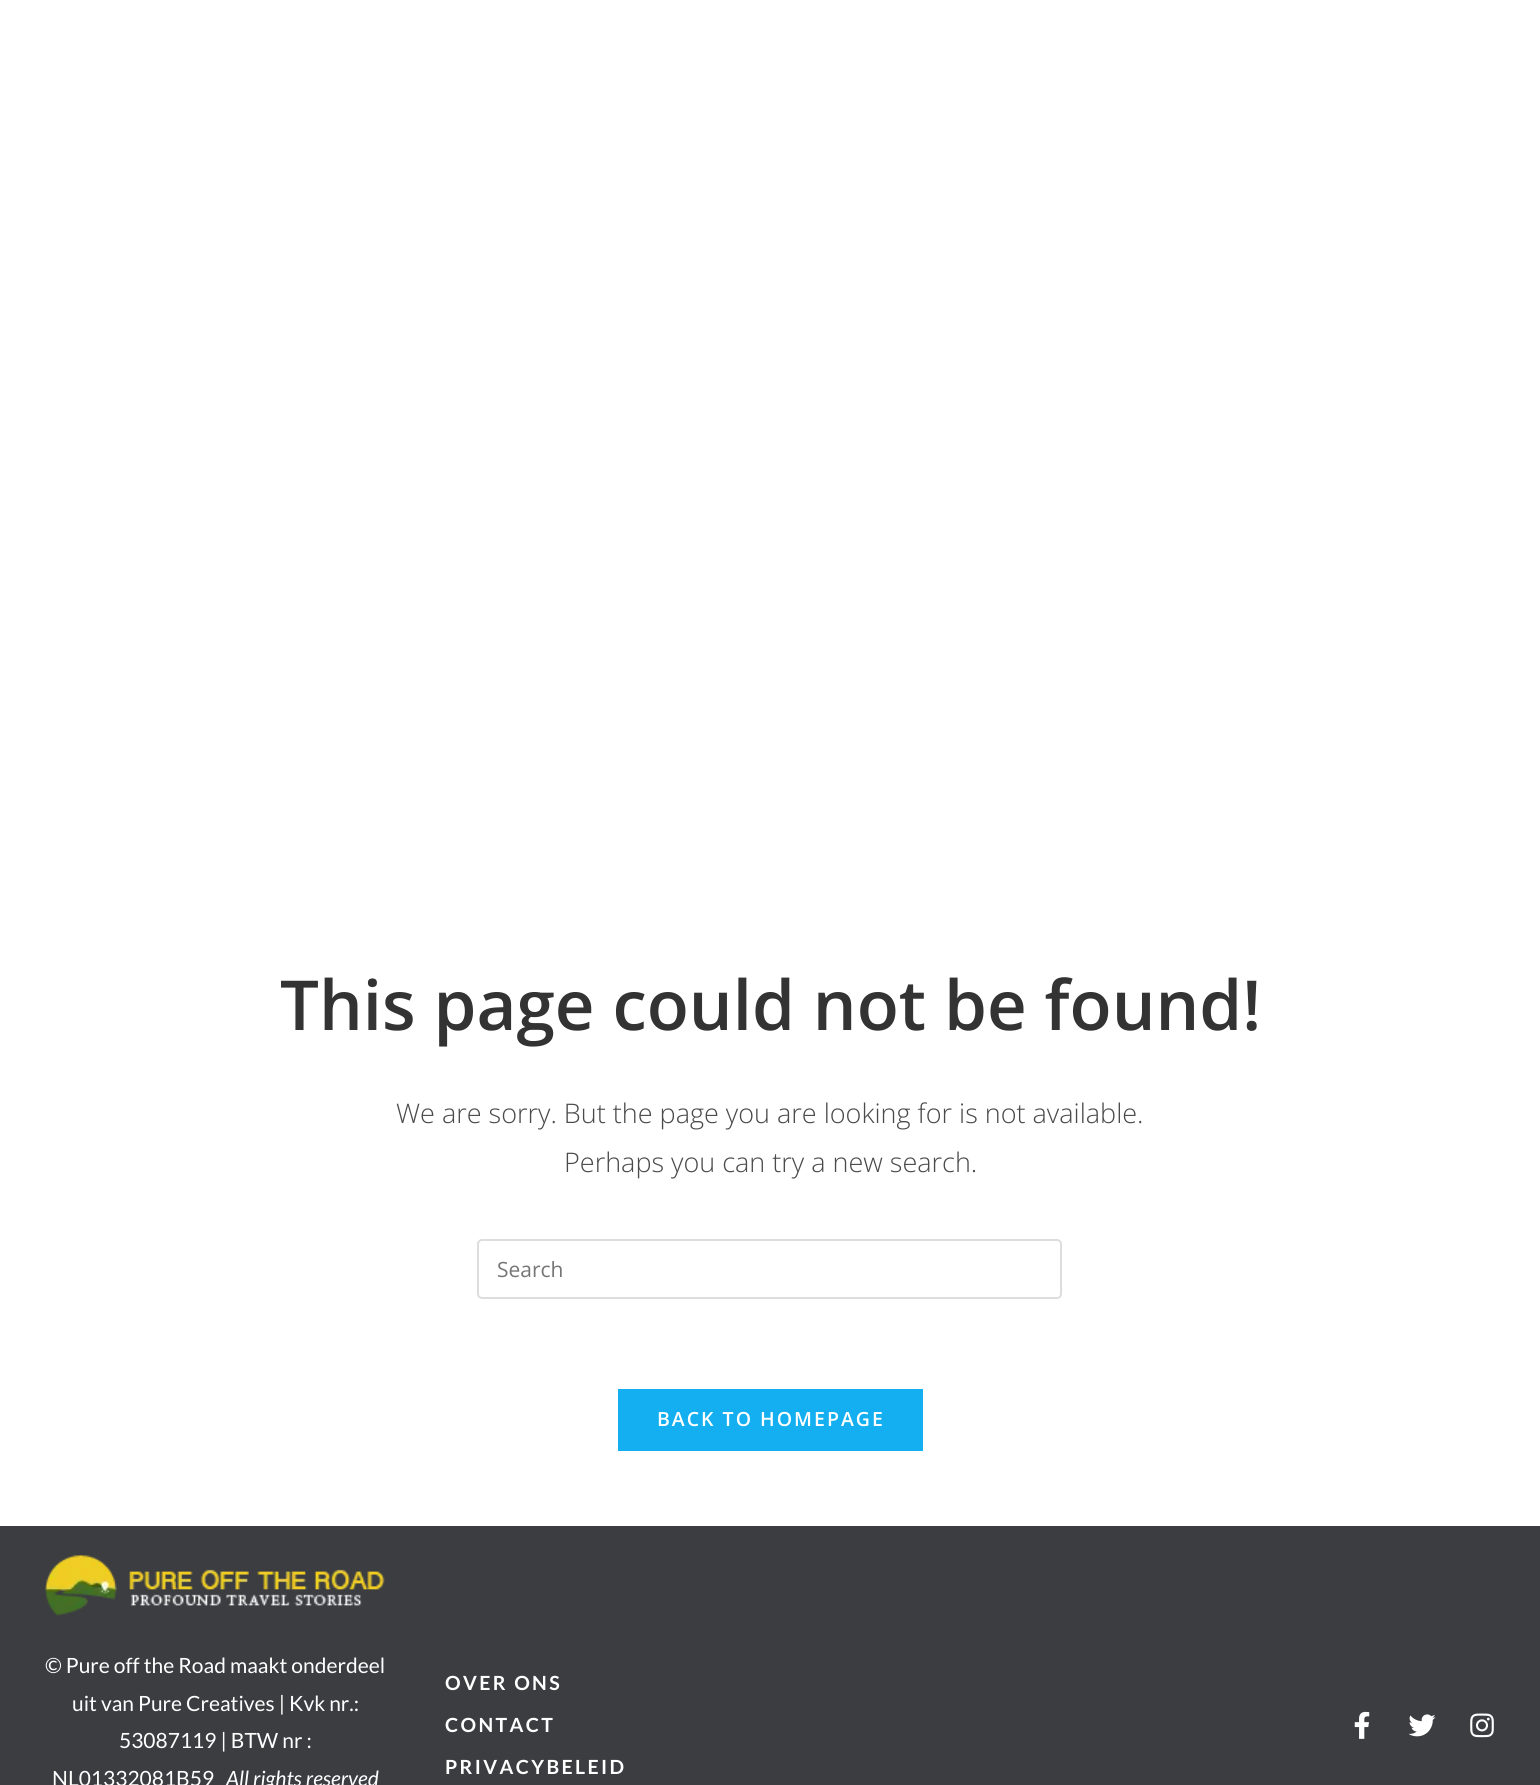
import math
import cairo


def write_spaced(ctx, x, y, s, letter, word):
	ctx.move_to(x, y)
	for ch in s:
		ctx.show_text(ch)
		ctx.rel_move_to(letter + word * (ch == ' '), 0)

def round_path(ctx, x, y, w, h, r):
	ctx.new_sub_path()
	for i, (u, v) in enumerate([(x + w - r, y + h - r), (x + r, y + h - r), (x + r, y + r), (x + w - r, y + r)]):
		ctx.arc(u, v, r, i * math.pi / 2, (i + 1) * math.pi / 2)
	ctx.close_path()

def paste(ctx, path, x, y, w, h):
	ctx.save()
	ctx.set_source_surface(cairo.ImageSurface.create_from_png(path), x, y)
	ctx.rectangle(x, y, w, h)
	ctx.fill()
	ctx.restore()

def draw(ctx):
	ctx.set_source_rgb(1, 1, 1)
	ctx.paint()
	ctx.select_font_face('Open Sans SemiBold')
	ctx.set_font_size(69)
	ctx.set_source_rgb(0.2, 0.2, 0.2)
	ctx.move_to(280, 1030)
	ctx.show_text('This page could not be found!')
	ctx.select_font_face('Open Sans Light')
	ctx.set_font_size(27)
	ctx.set_source_rgb(0.29, 0.29, 0.29)
	ctx.move_to(396, 1123)
	ctx.show_text('We are sorry. But the page you are looking for is not available.')
	ctx.move_to(564, 1172)
	ctx.show_text('Perhaps you can try a new search.')
	round_path(ctx, 478, 1240, 583, 58, 4)
	ctx.set_source_rgb(0.867, 0.867, 0.867)
	ctx.stroke()
	ctx.select_font_face('Open Sans')
	ctx.set_font_size(21)
	ctx.set_source_rgb(0.459, 0.459, 0.459)
	ctx.move_to(497, 1277)
	ctx.show_text('Search')
	ctx.set_source_rgb(0.075, 0.686, 0.941)
	ctx.rectangle(618, 1389, 305, 62)
	ctx.fill()
	ctx.select_font_face('Open Sans SemiBold')
	ctx.set_font_size(19.5)
	ctx.set_source_rgb(1, 1, 1)
	write_spaced(ctx, 657, 1426, 'BACK TO HOMEPAGE', 2, 0)
	ctx.set_source_rgb(0.235, 0.239, 0.255)
	ctx.rectangle(0, 1526, 1540, 259)
	ctx.fill()
	paste(ctx, 'media/1.png', 45, 1555, 340, 61)
	ctx.select_font_face('Lato')
	ctx.set_font_size(21)
	ctx.set_source_rgb(1, 1, 1)
	for x, y, s in [
		(45, 1673, '© Pure off the Road maakt onderdeel'),
		(72, 1711, 'uit van Pure Creatives | Kvk nr.:'),
		(119, 1748, '53087119 | BTW nr :'),
		(52, 1786, 'NL01332081B59'),
	]:
		ctx.move_to(x, y)
		ctx.show_text(s)
	ctx.select_font_face('Lato', cairo.FONT_SLANT_ITALIC)
	ctx.move_to(226, 1786)
	ctx.show_text('All rights reserved')
	ctx.select_font_face('Lato', cairo.FONT_SLANT_NORMAL, cairo.FONT_WEIGHT_BOLD)
	ctx.set_font_size(19.5)
	for x, y, s in [
		(445, 1690, 'OVER ONS'),
		(445, 1732, 'CONTACT'),
		(445, 1774, 'PRIVACYBELEID'),
	]:
		write_spaced(ctx, x, y, s, 2.4, 0)
	paste(ctx, 'media/2.png', 1354, 1711, 16, 28)
	paste(ctx, 'media/3.png', 1408, 1714, 28, 23)
	paste(ctx, 'media/4.png', 1470, 1713, 24, 25)


surface = cairo.ImageSurface(cairo.FORMAT_RGB24, 1540, 1785)
ctx = cairo.Context(surface)
options = cairo.FontOptions()
options.set_hint_metrics(cairo.HINT_METRICS_OFF)
options.set_hint_style(cairo.HINT_STYLE_NONE)
ctx.set_font_options(options)
ctx.set_miter_limit(4)
draw(ctx)
surface.write_to_png('image.png')
